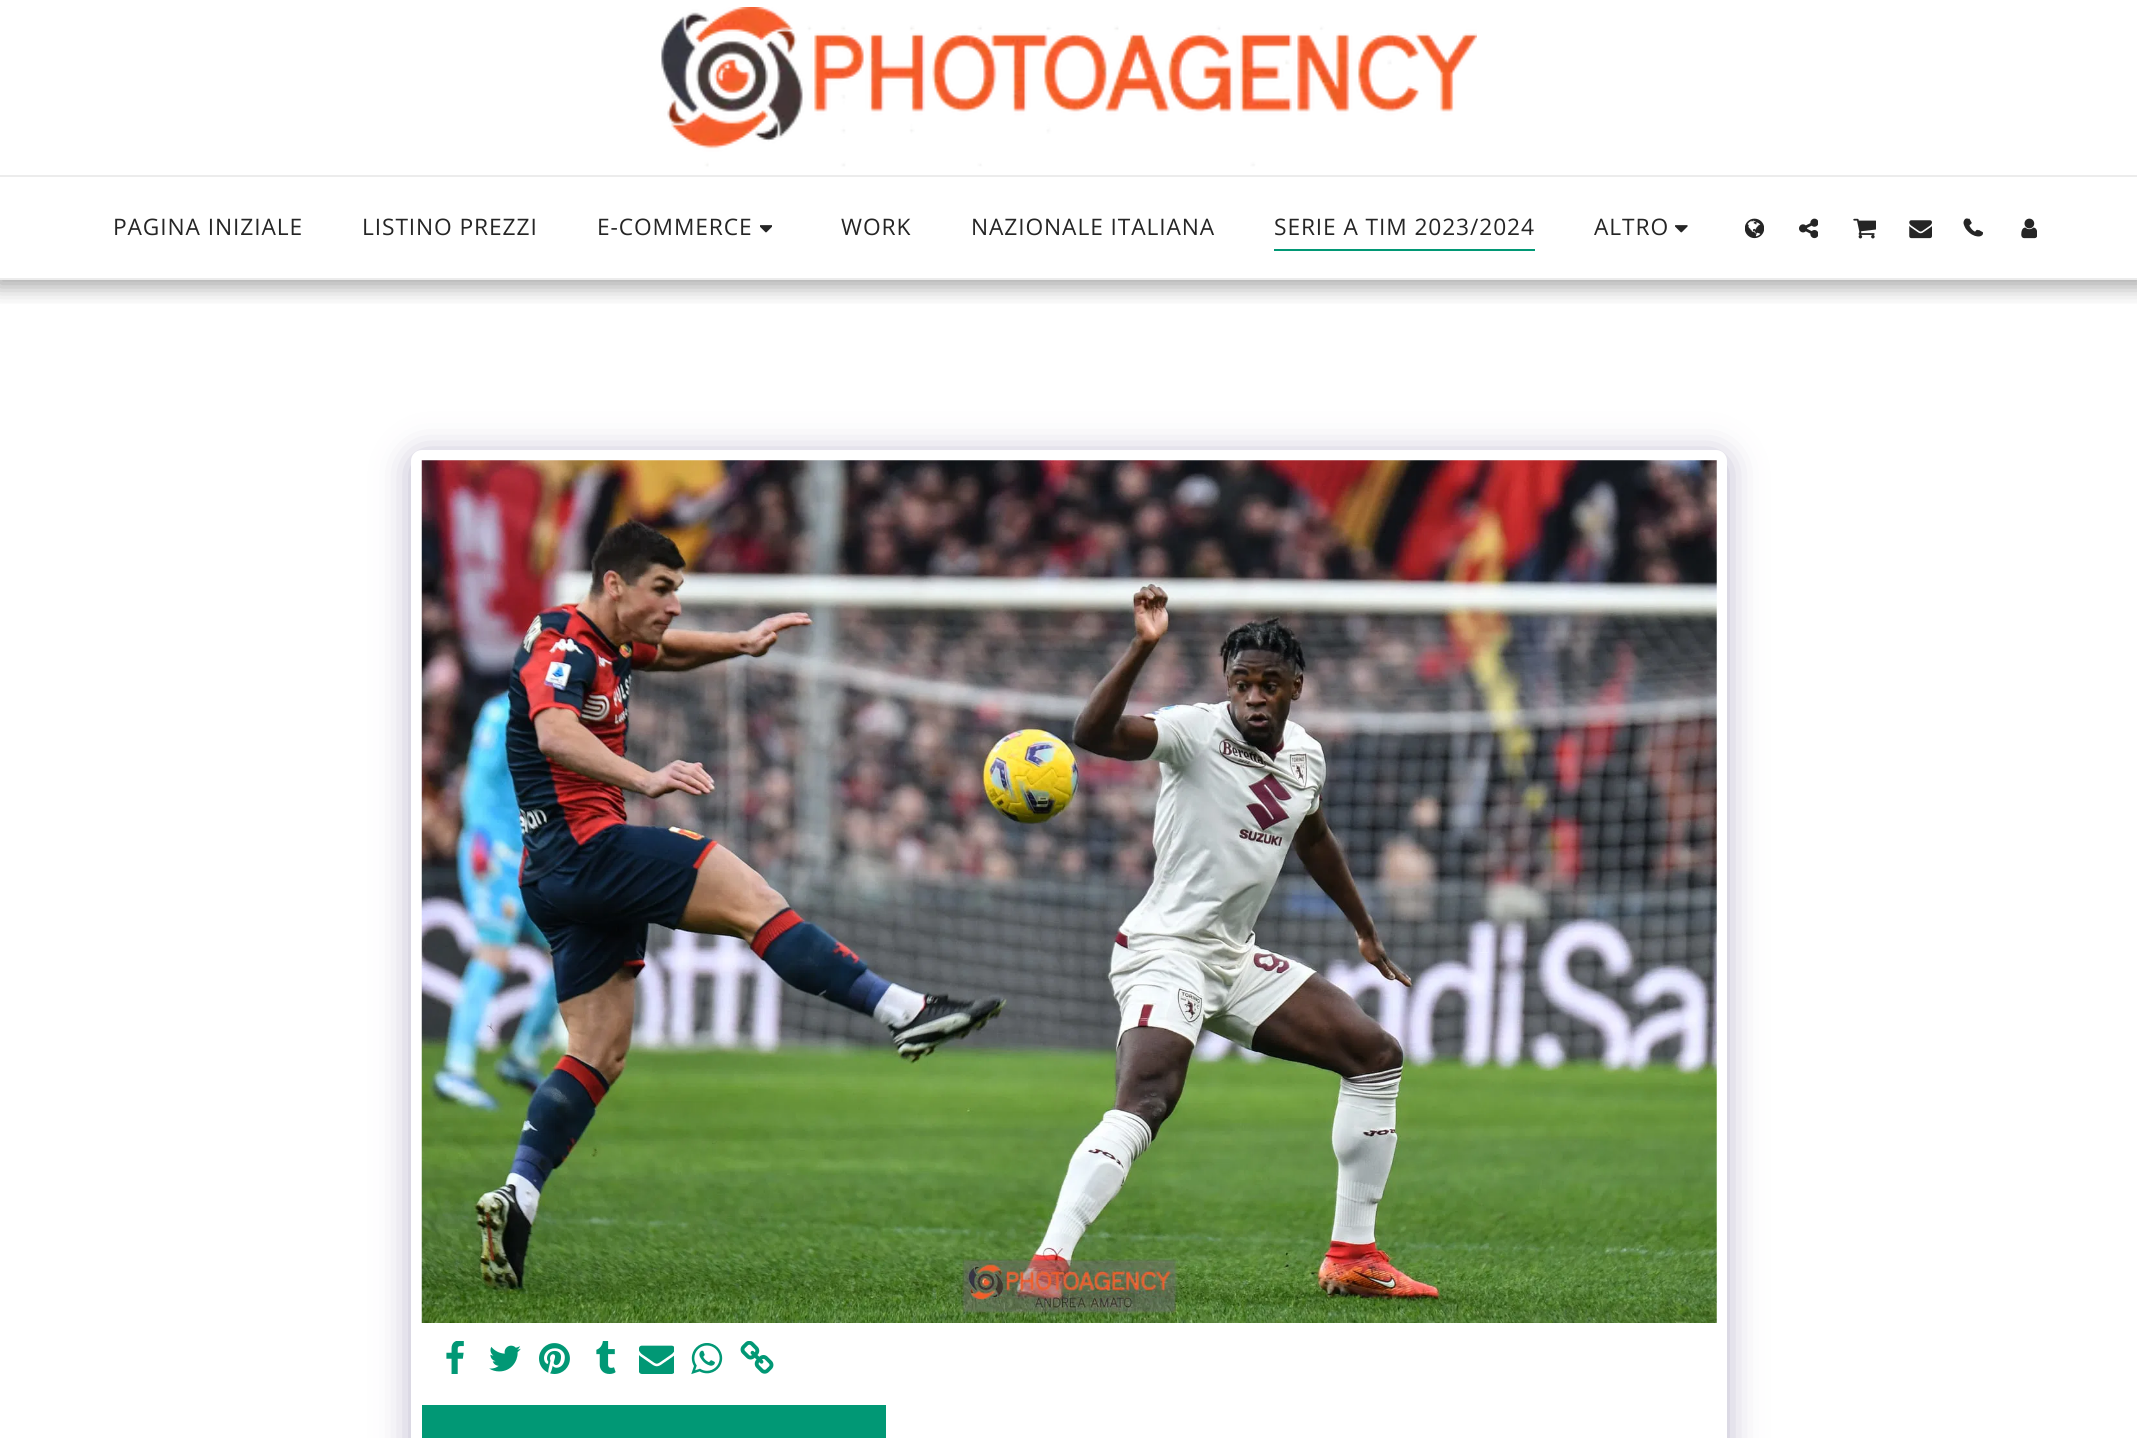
import math
import cairo


def write_spaced(ctx, x, y, s, letter, word):
	ctx.move_to(x, y)
	for ch in s:
		ctx.show_text(ch)
		ctx.rel_move_to(letter + word * (ch == ' '), 0)

def round_path(ctx, x, y, w, h, r):
	ctx.new_sub_path()
	for i, (u, v) in enumerate([(x + w - r, y + h - r), (x + r, y + h - r), (x + r, y + r), (x + w - r, y + r)]):
		ctx.arc(u, v, r, i * math.pi / 2, (i + 1) * math.pi / 2)
	ctx.close_path()

def blur_box(ctx, x, y, w, h, r, blur, alpha):
	ctx.push_group_with_content(cairo.CONTENT_ALPHA)
	ctx.set_operator(cairo.OPERATOR_SOURCE)
	for i in range(15, -16, -2):
		e = blur * i / 6
		if min(w, h) + 2 * e > 0:
			ctx.set_source_rgba(0, 0, 0, alpha * math.erfc((i - 1) / 8.5) / 2)
			round_path(ctx, x - e, y - e, w + 2 * e, h + 2 * e, max(0, min(r + e + blur * .6, min(w, h) / 2 + e)))
			ctx.fill()
	ctx.mask(ctx.pop_group())

def paste(ctx, path, x, y, w, h):
	ctx.save()
	ctx.set_source_surface(cairo.ImageSurface.create_from_png(path), x, y)
	ctx.rectangle(x, y, w, h)
	ctx.fill()
	ctx.restore()

def draw(ctx):
	ctx.set_source_rgb(1, 1, 1)
	ctx.paint()
	ctx.save()
	ctx.rectangle(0, 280, 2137, 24)
	ctx.clip()
	ctx.set_source_rgb(0, 0, 0)
	blur_box(ctx, -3, 0, 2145, 287, 0, 10.5, 0.35)
	ctx.restore()
	ctx.set_source_rgb(0.922, 0.922, 0.922)
	ctx.rectangle(0, 278, 2137, 2)
	ctx.fill()
	paste(ctx, 'media/1.png', 661, 7, 816, 160)
	ctx.rectangle(0, 175, 2137, 2)
	ctx.fill()
	ctx.select_font_face('Open Sans')
	ctx.set_font_size(22.75)
	ctx.set_source_rgb(0.145, 0.145, 0.145)
	for x, y, s in [
		(113, 235, 'PAGINA INIZIALE'),
		(362, 235, 'LISTINO PREZZI'),
		(597, 235, 'E-COMMERCE'),
	]:
		write_spaced(ctx, x, y, s, 0.9, 0)
	paste(ctx, 'media/2.png', 760, 225, 12, 8)
	for x, y, s in [
		(841, 235, 'WORK'),
		(971, 235, 'NAZIONALE ITALIANA'),
		(1274, 235, 'SERIE A TIM 2023/2024'),
	]:
		write_spaced(ctx, x, y, s, 0.9, 0)
	ctx.set_source_rgb(0.004, 0.596, 0.459)
	ctx.rectangle(1274, 249, 261, 2)
	ctx.fill()
	ctx.set_source_rgb(0.145, 0.145, 0.145)
	write_spaced(ctx, 1594, 235, 'ALTRO', 0.9, 0)
	paste(ctx, 'media/3.png', 1675, 225, 13, 8)
	paste(ctx, 'media/4.png', 1745, 218, 19, 21)
	paste(ctx, 'media/5.png', 1799, 218, 19, 21)
	paste(ctx, 'media/6.png', 1853, 218, 23, 21)
	paste(ctx, 'media/7.png', 1909, 220, 23, 19)
	paste(ctx, 'media/8.png', 1967, 218, 16, 19)
	paste(ctx, 'media/9.png', 1963, 218, 16, 19)
	paste(ctx, 'media/10.png', 2021, 218, 16, 21)
	ctx.set_source_rgb(0.302, 0.247, 0.478)
	blur_box(ctx, 411, 455, 1316, 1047, 11, 17.5, 0.4)
	ctx.set_source_rgb(1, 1, 1)
	round_path(ctx, 411, 450, 1316, 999, 11)
	ctx.fill()
	paste(ctx, 'media/11.png', 421, 460, 1296, 863)
	paste(ctx, 'media/12.png', 446, 1341, 18, 33)
	paste(ctx, 'media/13.png', 489, 1345, 32, 27)
	paste(ctx, 'media/14.png', 539, 1343, 31, 31)
	paste(ctx, 'media/15.png', 596, 1341, 20, 33)
	paste(ctx, 'media/16.png', 639, 1345, 35, 29)
	paste(ctx, 'media/17.png', 691, 1343, 32, 32)
	paste(ctx, 'media/18.png', 740, 1341, 34, 33)
	ctx.set_source_rgb(0.004, 0.596, 0.459)
	ctx.rectangle(422, 1405, 464, 33)
	ctx.fill()


surface = cairo.ImageSurface(cairo.FORMAT_RGB24, 2137, 1438)
ctx = cairo.Context(surface)
options = cairo.FontOptions()
options.set_hint_metrics(cairo.HINT_METRICS_OFF)
options.set_hint_style(cairo.HINT_STYLE_NONE)
ctx.set_font_options(options)
ctx.set_miter_limit(4)
draw(ctx)
surface.write_to_png('image.png')
